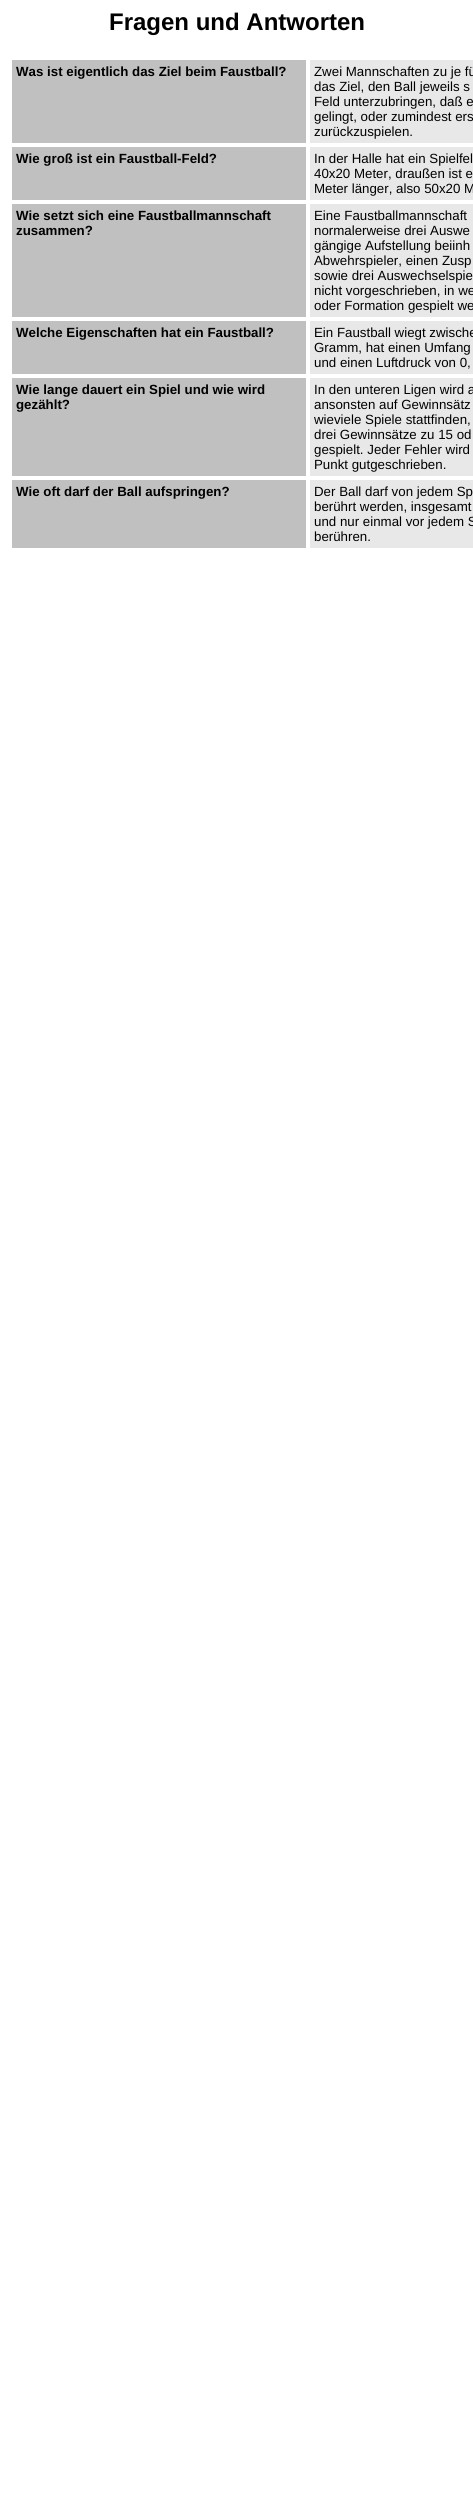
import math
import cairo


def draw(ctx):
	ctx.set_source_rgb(1, 1, 1)
	ctx.paint()
	ctx.select_font_face('Liberation Sans', cairo.FONT_SLANT_NORMAL, cairo.FONT_WEIGHT_BOLD)
	ctx.set_font_size(24)
	ctx.set_source_rgb(0, 0, 0)
	ctx.move_to(109, 30)
	ctx.show_text('Fragen und Antworten')
	ctx.set_source_rgb(0.753, 0.753, 0.753)
	ctx.rectangle(12, 60, 294, 83)
	ctx.fill()
	ctx.set_font_size(13.3)
	ctx.set_source_rgb(0, 0, 0)
	ctx.move_to(16, 76)
	ctx.show_text('Was ist eigentlich das Ziel beim Faustball?')
	ctx.set_source_rgb(0.91, 0.91, 0.91)
	ctx.rectangle(310, 60, 163, 83)
	ctx.fill()
	ctx.select_font_face('Liberation Sans')
	ctx.set_source_rgb(0, 0, 0)
	for x, y, s in [
		(314, 76, 'Zwei Mannschaften zu je fü'),
		(314, 91, 'das Ziel, den Ball jeweils s'),
		(314, 106, 'Feld unterzubringen, daß e'),
		(314, 121, 'gelingt, oder zumindest ers'),
		(314, 136, 'zurückzuspielen.'),
	]:
		ctx.move_to(x, y)
		ctx.show_text(s)
	ctx.set_source_rgb(0.753, 0.753, 0.753)
	ctx.rectangle(12, 147, 294, 53)
	ctx.fill()
	ctx.select_font_face('Liberation Sans', cairo.FONT_SLANT_NORMAL, cairo.FONT_WEIGHT_BOLD)
	ctx.set_source_rgb(0, 0, 0)
	ctx.move_to(16, 163)
	ctx.show_text('Wie groß ist ein Faustball-Feld?')
	ctx.set_source_rgb(0.91, 0.91, 0.91)
	ctx.rectangle(310, 147, 163, 53)
	ctx.fill()
	ctx.select_font_face('Liberation Sans')
	ctx.set_source_rgb(0, 0, 0)
	for x, y, s in [
		(314, 163, 'In der Halle hat ein Spielfel'),
		(314, 178, '40x20 Meter, draußen ist e'),
		(314, 193, 'Meter länger, also 50x20 M'),
	]:
		ctx.move_to(x, y)
		ctx.show_text(s)
	ctx.set_source_rgb(0.753, 0.753, 0.753)
	ctx.rectangle(12, 204, 294, 113)
	ctx.fill()
	ctx.select_font_face('Liberation Sans', cairo.FONT_SLANT_NORMAL, cairo.FONT_WEIGHT_BOLD)
	ctx.set_source_rgb(0, 0, 0)
	ctx.move_to(16, 220)
	ctx.show_text('Wie setzt sich eine Faustballmannschaft')
	ctx.move_to(16, 235)
	ctx.show_text('zusammen?')
	ctx.set_source_rgb(0.91, 0.91, 0.91)
	ctx.rectangle(310, 204, 163, 113)
	ctx.fill()
	ctx.select_font_face('Liberation Sans')
	ctx.set_source_rgb(0, 0, 0)
	for x, y, s in [
		(314, 220, 'Eine Faustballmannschaft'),
		(314, 235, 'normalerweise drei Auswe'),
		(314, 250, 'gängige Aufstellung beiinh'),
		(314, 265, 'Abwehrspieler, einen Zusp'),
		(314, 280, 'sowie drei Auswechselspie'),
		(314, 295, 'nicht vorgeschrieben, in we'),
		(314, 310, 'oder Formation gespielt we'),
	]:
		ctx.move_to(x, y)
		ctx.show_text(s)
	ctx.set_source_rgb(0.753, 0.753, 0.753)
	ctx.rectangle(12, 321, 294, 53)
	ctx.fill()
	ctx.select_font_face('Liberation Sans', cairo.FONT_SLANT_NORMAL, cairo.FONT_WEIGHT_BOLD)
	ctx.set_source_rgb(0, 0, 0)
	ctx.move_to(16, 337)
	ctx.show_text('Welche Eigenschaften hat ein Faustball?')
	ctx.set_source_rgb(0.91, 0.91, 0.91)
	ctx.rectangle(310, 321, 163, 53)
	ctx.fill()
	ctx.select_font_face('Liberation Sans')
	ctx.set_source_rgb(0, 0, 0)
	for x, y, s in [
		(314, 337, 'Ein Faustball wiegt zwische'),
		(314, 352, 'Gramm, hat einen Umfang'),
		(314, 367, 'und einen Luftdruck von 0,'),
	]:
		ctx.move_to(x, y)
		ctx.show_text(s)
	ctx.set_source_rgb(0.753, 0.753, 0.753)
	ctx.rectangle(12, 378, 294, 98)
	ctx.fill()
	ctx.select_font_face('Liberation Sans', cairo.FONT_SLANT_NORMAL, cairo.FONT_WEIGHT_BOLD)
	ctx.set_source_rgb(0, 0, 0)
	ctx.move_to(16, 394)
	ctx.show_text('Wie lange dauert ein Spiel und wie wird')
	ctx.move_to(16, 409)
	ctx.show_text('gezählt?')
	ctx.set_source_rgb(0.91, 0.91, 0.91)
	ctx.rectangle(310, 378, 163, 98)
	ctx.fill()
	ctx.select_font_face('Liberation Sans')
	ctx.set_source_rgb(0, 0, 0)
	for x, y, s in [
		(314, 394, 'In den unteren Ligen wird a'),
		(314, 409, 'ansonsten auf Gewinnsätz'),
		(314, 424, 'wieviele Spiele stattfinden,'),
		(314, 439, 'drei Gewinnsätze zu 15 od'),
		(314, 454, 'gespielt. Jeder Fehler wird'),
		(314, 469, 'Punkt gutgeschrieben.'),
	]:
		ctx.move_to(x, y)
		ctx.show_text(s)
	ctx.set_source_rgb(0.753, 0.753, 0.753)
	ctx.rectangle(12, 480, 294, 68)
	ctx.fill()
	ctx.select_font_face('Liberation Sans', cairo.FONT_SLANT_NORMAL, cairo.FONT_WEIGHT_BOLD)
	ctx.set_source_rgb(0, 0, 0)
	ctx.move_to(16, 496)
	ctx.show_text('Wie oft darf der Ball aufspringen?')
	ctx.set_source_rgb(0.91, 0.91, 0.91)
	ctx.rectangle(310, 480, 163, 68)
	ctx.fill()
	ctx.select_font_face('Liberation Sans')
	ctx.set_source_rgb(0, 0, 0)
	for x, y, s in [
		(314, 496, 'Der Ball darf von jedem Sp'),
		(314, 511, 'berührt werden, insgesamt'),
		(314, 526, 'und nur einmal vor jedem S'),
		(314, 541, 'berühren.'),
	]:
		ctx.move_to(x, y)
		ctx.show_text(s)


surface = cairo.ImageSurface(cairo.FORMAT_RGB24, 473, 2506)
ctx = cairo.Context(surface)
options = cairo.FontOptions()
options.set_hint_metrics(cairo.HINT_METRICS_OFF)
options.set_hint_style(cairo.HINT_STYLE_NONE)
ctx.set_font_options(options)
ctx.set_miter_limit(4)
draw(ctx)
surface.write_to_png('image.png')
